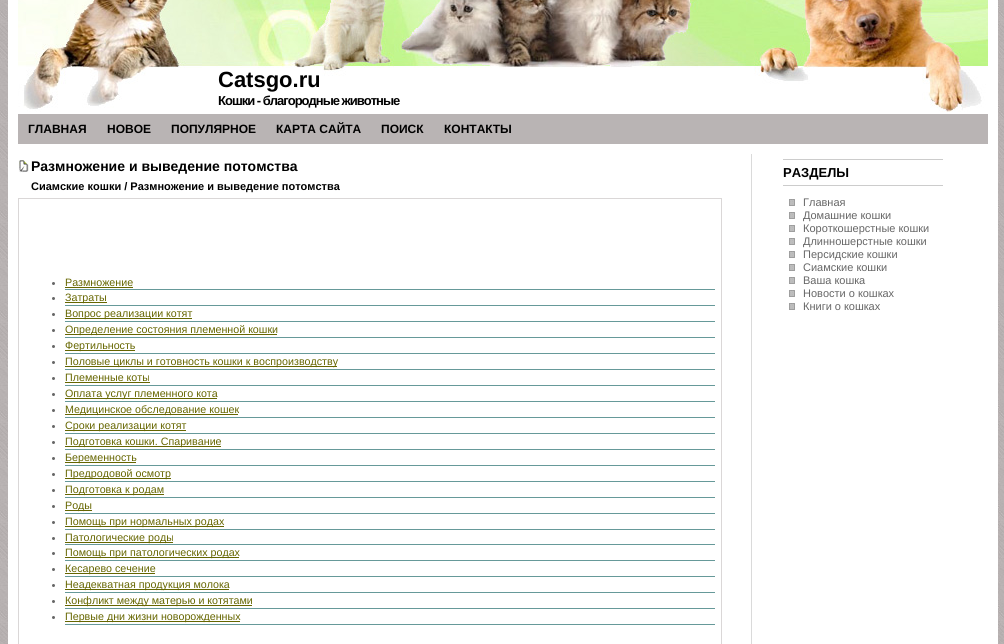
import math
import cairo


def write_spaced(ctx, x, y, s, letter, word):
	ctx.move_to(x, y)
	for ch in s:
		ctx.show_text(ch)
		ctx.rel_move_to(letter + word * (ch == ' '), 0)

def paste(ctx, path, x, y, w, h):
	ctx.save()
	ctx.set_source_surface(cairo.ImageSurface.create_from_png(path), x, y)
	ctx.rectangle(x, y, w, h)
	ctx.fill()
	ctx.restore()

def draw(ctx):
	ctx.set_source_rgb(1, 1, 1)
	ctx.paint()
	paste(ctx, 'media/1.png', 0, 0, 1004, 644)
	ctx.set_source_rgb(1, 1, 1)
	ctx.rectangle(8, 0, 990, 644)
	ctx.fill()
	paste(ctx, 'media/2.png', 18, 0, 970, 112)
	ctx.select_font_face('Liberation Sans', cairo.FONT_SLANT_NORMAL, cairo.FONT_WEIGHT_BOLD)
	ctx.set_font_size(22)
	ctx.set_source_rgb(0, 0, 0)
	ctx.move_to(218, 87)
	ctx.show_text('Catsgo.ru')
	ctx.set_font_size(13)
	write_spaced(ctx, 218, 105, 'Кошки - благородные животные', -1, 0)
	ctx.set_source_rgb(0.725, 0.706, 0.706)
	ctx.rectangle(18, 114, 970, 30)
	ctx.fill()
	ctx.set_font_size(12)
	ctx.set_source_rgb(0, 0, 0)
	for x, y, s in [
		(28, 133, 'ГЛАВНАЯ'),
		(107, 133, 'НОВОЕ'),
		(171, 133, 'ПОПУЛЯРНОЕ'),
		(276, 133, 'КАРТА САЙТА'),
		(381, 133, 'ПОИСК'),
		(444, 133, 'КОНТАКТЫ'),
	]:
		ctx.move_to(x, y)
		ctx.show_text(s)
	ctx.set_source_rgb(0.855, 0.855, 0.855)
	ctx.rectangle(751, 154, 1, 490)
	ctx.fill()
	paste(ctx, 'media/3.png', 18, 160, 11, 13)
	ctx.set_font_size(14)
	ctx.set_source_rgb(0, 0, 0)
	ctx.move_to(31, 171)
	ctx.show_text('Размножение и выведение потомства')
	ctx.set_font_size(11)
	ctx.move_to(31, 190)
	ctx.show_text('Сиамские кошки / Размножение и выведение потомства')
	ctx.rectangle(18.5, 198.5, 703, 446)
	ctx.set_source_rgb(0.855, 0.843, 0.843)
	ctx.set_line_width(1)
	ctx.stroke()
	ctx.set_source_rgb(0.4, 0.6, 0.6)
	ctx.rectangle(65, 289, 650, 1)
	ctx.fill()
	ctx.set_source_rgb(0.4, 0.4, 0.4)
	ctx.arc(53.5, 283.5, 1.5, 0, 2 * math.pi)
	ctx.fill()
	ctx.select_font_face('Liberation Sans')
	ctx.set_font_size(10.7)
	ctx.set_source_rgb(0.4, 0.4, 0)
	ctx.move_to(65, 286)
	ctx.show_text('Размножение')
	ctx.rectangle(65, 287, 68, 1)
	ctx.fill()
	ctx.set_source_rgb(0.4, 0.6, 0.6)
	ctx.rectangle(65, 305, 650, 1)
	ctx.fill()
	ctx.set_source_rgb(0.4, 0.4, 0.4)
	ctx.arc(53.5, 298.5, 1.5, 0, 2 * math.pi)
	ctx.fill()
	ctx.set_source_rgb(0.4, 0.4, 0)
	ctx.rectangle(65, 302, 42, 1)
	ctx.fill()
	ctx.move_to(65, 301)
	ctx.show_text('Затраты')
	ctx.set_source_rgb(0.4, 0.6, 0.6)
	ctx.rectangle(65, 321, 650, 1)
	ctx.fill()
	ctx.set_source_rgb(0.4, 0.4, 0.4)
	ctx.arc(53.5, 314.5, 1.5, 0, 2 * math.pi)
	ctx.fill()
	ctx.set_source_rgb(0.4, 0.4, 0)
	ctx.rectangle(65, 318, 127, 1)
	ctx.fill()
	ctx.move_to(65, 317)
	ctx.show_text('Вопрос реализации котят')
	ctx.set_source_rgb(0.4, 0.6, 0.6)
	ctx.rectangle(65, 337, 650, 1)
	ctx.fill()
	ctx.set_source_rgb(0.4, 0.4, 0.4)
	ctx.arc(53.5, 330.5, 1.5, 0, 2 * math.pi)
	ctx.fill()
	ctx.set_source_rgb(0.4, 0.4, 0)
	ctx.rectangle(65, 334, 212, 1)
	ctx.fill()
	ctx.move_to(65, 333)
	ctx.show_text('Определение состояния племенной кошки')
	ctx.set_source_rgb(0.4, 0.6, 0.6)
	ctx.rectangle(65, 353, 650, 1)
	ctx.fill()
	ctx.set_source_rgb(0.4, 0.4, 0.4)
	ctx.arc(53.5, 346.5, 1.5, 0, 2 * math.pi)
	ctx.fill()
	ctx.set_source_rgb(0.4, 0.4, 0)
	ctx.rectangle(65, 350, 70, 1)
	ctx.fill()
	ctx.move_to(65, 349)
	ctx.show_text('Фертильность')
	ctx.set_source_rgb(0.4, 0.6, 0.6)
	ctx.rectangle(65, 369, 650, 1)
	ctx.fill()
	ctx.set_source_rgb(0.4, 0.4, 0.4)
	ctx.arc(53.5, 362.5, 1.5, 0, 2 * math.pi)
	ctx.fill()
	ctx.set_source_rgb(0.4, 0.4, 0)
	ctx.rectangle(65, 366, 272, 1)
	ctx.fill()
	ctx.move_to(65, 365)
	ctx.show_text('Половые циклы и готовность кошки к воспроизводству')
	ctx.set_source_rgb(0.4, 0.6, 0.6)
	ctx.rectangle(65, 385, 650, 1)
	ctx.fill()
	ctx.set_source_rgb(0.4, 0.4, 0.4)
	ctx.arc(53.5, 378.5, 1.5, 0, 2 * math.pi)
	ctx.fill()
	ctx.set_source_rgb(0.4, 0.4, 0)
	ctx.move_to(65, 381)
	ctx.show_text('Племенные коты')
	ctx.rectangle(65, 382, 85, 1)
	ctx.fill()
	ctx.set_source_rgb(0.4, 0.6, 0.6)
	ctx.rectangle(65, 401, 650, 1)
	ctx.fill()
	ctx.set_source_rgb(0.4, 0.4, 0.4)
	ctx.arc(53.5, 394.5, 1.5, 0, 2 * math.pi)
	ctx.fill()
	ctx.set_source_rgb(0.4, 0.4, 0)
	ctx.rectangle(65, 398, 152, 1)
	ctx.fill()
	ctx.move_to(65, 397)
	ctx.show_text('Оплата услуг племенного кота')
	ctx.set_source_rgb(0.4, 0.6, 0.6)
	ctx.rectangle(65, 417, 650, 1)
	ctx.fill()
	ctx.set_source_rgb(0.4, 0.4, 0.4)
	ctx.arc(53.5, 410.5, 1.5, 0, 2 * math.pi)
	ctx.fill()
	ctx.set_source_rgb(0.4, 0.4, 0)
	ctx.rectangle(65, 414, 173, 1)
	ctx.fill()
	ctx.move_to(65, 413)
	ctx.show_text('Медицинское обследование кошек')
	ctx.set_source_rgb(0.4, 0.6, 0.6)
	ctx.rectangle(65, 433, 650, 1)
	ctx.fill()
	ctx.set_source_rgb(0.4, 0.4, 0.4)
	ctx.arc(53.5, 426.5, 1.5, 0, 2 * math.pi)
	ctx.fill()
	ctx.set_source_rgb(0.4, 0.4, 0)
	ctx.rectangle(65, 430, 121, 1)
	ctx.fill()
	ctx.move_to(65, 429)
	ctx.show_text('Сроки реализации котят')
	ctx.set_source_rgb(0.4, 0.6, 0.6)
	ctx.rectangle(65, 449, 650, 1)
	ctx.fill()
	ctx.set_source_rgb(0.4, 0.4, 0.4)
	ctx.arc(53.5, 442.5, 1.5, 0, 2 * math.pi)
	ctx.fill()
	ctx.set_source_rgb(0.4, 0.4, 0)
	ctx.rectangle(65, 446, 156, 1)
	ctx.fill()
	ctx.move_to(65, 445)
	ctx.show_text('Подготовка кошки. Спаривание')
	ctx.set_source_rgb(0.4, 0.6, 0.6)
	ctx.rectangle(65, 465, 650, 1)
	ctx.fill()
	ctx.set_source_rgb(0.4, 0.4, 0.4)
	ctx.arc(53.5, 458.5, 1.5, 0, 2 * math.pi)
	ctx.fill()
	ctx.set_source_rgb(0.4, 0.4, 0)
	ctx.rectangle(65, 462, 71, 1)
	ctx.fill()
	ctx.move_to(65, 461)
	ctx.show_text('Беременность')
	ctx.set_source_rgb(0.4, 0.6, 0.6)
	ctx.rectangle(65, 481, 650, 1)
	ctx.fill()
	ctx.set_source_rgb(0.4, 0.4, 0.4)
	ctx.arc(53.5, 474.5, 1.5, 0, 2 * math.pi)
	ctx.fill()
	ctx.set_source_rgb(0.4, 0.4, 0)
	ctx.rectangle(65, 478, 106, 1)
	ctx.fill()
	ctx.move_to(65, 477)
	ctx.show_text('Предродовой осмотр')
	ctx.set_source_rgb(0.4, 0.6, 0.6)
	ctx.rectangle(65, 497, 650, 1)
	ctx.fill()
	ctx.set_source_rgb(0.4, 0.4, 0.4)
	ctx.arc(53.5, 490.5, 1.5, 0, 2 * math.pi)
	ctx.fill()
	ctx.set_source_rgb(0.4, 0.4, 0)
	ctx.rectangle(65, 494, 99, 1)
	ctx.fill()
	ctx.move_to(65, 493)
	ctx.show_text('Подготовка к родам')
	ctx.set_source_rgb(0.4, 0.6, 0.6)
	ctx.rectangle(65, 513, 650, 1)
	ctx.fill()
	ctx.set_source_rgb(0.4, 0.4, 0.4)
	ctx.arc(53.5, 506.5, 1.5, 0, 2 * math.pi)
	ctx.fill()
	ctx.set_source_rgb(0.4, 0.4, 0)
	ctx.rectangle(65, 510, 27, 1)
	ctx.fill()
	ctx.move_to(65, 509)
	ctx.show_text('Роды')
	ctx.set_source_rgb(0.4, 0.6, 0.6)
	ctx.rectangle(65, 529, 650, 1)
	ctx.fill()
	ctx.set_source_rgb(0.4, 0.4, 0.4)
	ctx.arc(53.5, 522.5, 1.5, 0, 2 * math.pi)
	ctx.fill()
	ctx.set_source_rgb(0.4, 0.4, 0)
	ctx.rectangle(65, 526, 159, 1)
	ctx.fill()
	ctx.move_to(65, 525)
	ctx.show_text('Помощь при нормальных родах')
	ctx.set_source_rgb(0.4, 0.6, 0.6)
	ctx.rectangle(65, 544, 650, 1)
	ctx.fill()
	ctx.set_source_rgb(0.4, 0.4, 0.4)
	ctx.arc(53.5, 538.5, 1.5, 0, 2 * math.pi)
	ctx.fill()
	ctx.set_source_rgb(0.4, 0.4, 0)
	ctx.rectangle(65, 542, 108, 1)
	ctx.fill()
	ctx.move_to(65, 541)
	ctx.show_text('Патологические роды')
	ctx.set_source_rgb(0.4, 0.6, 0.6)
	ctx.rectangle(65, 560, 650, 1)
	ctx.fill()
	ctx.set_source_rgb(0.4, 0.4, 0.4)
	ctx.arc(53.5, 553.5, 1.5, 0, 2 * math.pi)
	ctx.fill()
	ctx.set_source_rgb(0.4, 0.4, 0)
	ctx.rectangle(65, 557, 174, 1)
	ctx.fill()
	ctx.move_to(65, 556)
	ctx.show_text('Помощь при патологических родах')
	ctx.set_source_rgb(0.4, 0.6, 0.6)
	ctx.rectangle(65, 576, 650, 1)
	ctx.fill()
	ctx.set_source_rgb(0.4, 0.4, 0.4)
	ctx.arc(53.5, 569.5, 1.5, 0, 2 * math.pi)
	ctx.fill()
	ctx.set_source_rgb(0.4, 0.4, 0)
	ctx.rectangle(65, 573, 90, 1)
	ctx.fill()
	ctx.move_to(65, 572)
	ctx.show_text('Кесарево сечение')
	ctx.set_source_rgb(0.4, 0.6, 0.6)
	ctx.rectangle(65, 592, 650, 1)
	ctx.fill()
	ctx.set_source_rgb(0.4, 0.4, 0.4)
	ctx.arc(53.5, 585.5, 1.5, 0, 2 * math.pi)
	ctx.fill()
	ctx.set_source_rgb(0.4, 0.4, 0)
	ctx.rectangle(65, 589, 164, 1)
	ctx.fill()
	ctx.move_to(65, 588)
	ctx.show_text('Неадекватная продукция молока')
	ctx.set_source_rgb(0.4, 0.6, 0.6)
	ctx.rectangle(65, 608, 650, 1)
	ctx.fill()
	ctx.set_source_rgb(0.4, 0.4, 0.4)
	ctx.arc(53.5, 601.5, 1.5, 0, 2 * math.pi)
	ctx.fill()
	ctx.set_source_rgb(0.4, 0.4, 0)
	ctx.rectangle(65, 605, 187, 1)
	ctx.fill()
	ctx.move_to(65, 604)
	ctx.show_text('Конфликт между матерью и котятами')
	ctx.set_source_rgb(0.4, 0.6, 0.6)
	ctx.rectangle(65, 624, 650, 1)
	ctx.fill()
	ctx.set_source_rgb(0.4, 0.4, 0.4)
	ctx.arc(53.5, 617.5, 1.5, 0, 2 * math.pi)
	ctx.fill()
	ctx.set_source_rgb(0.4, 0.4, 0)
	ctx.rectangle(65, 621, 175, 1)
	ctx.fill()
	ctx.move_to(65, 620)
	ctx.show_text('Первые дни жизни новорожденных')
	ctx.set_source_rgb(0.8, 0.8, 0.8)
	ctx.rectangle(783, 159, 160, 1)
	ctx.fill()
	ctx.rectangle(783, 185, 160, 1)
	ctx.fill()
	ctx.select_font_face('Liberation Sans', cairo.FONT_SLANT_NORMAL, cairo.FONT_WEIGHT_BOLD)
	ctx.set_font_size(13)
	ctx.set_source_rgb(0, 0, 0)
	ctx.move_to(783, 177)
	ctx.show_text('РАЗДЕЛЫ')
	paste(ctx, 'media/4.png', 789, 199, 6, 7)
	ctx.select_font_face('Liberation Sans')
	ctx.set_font_size(11)
	ctx.set_source_rgb(0.4, 0.4, 0.4)
	ctx.move_to(803, 206)
	ctx.show_text('Главная')
	paste(ctx, 'media/4.png', 789, 212, 6, 7)
	ctx.move_to(803, 219)
	ctx.show_text('Домашние кошки')
	paste(ctx, 'media/4.png', 789, 225, 6, 7)
	ctx.move_to(803, 232)
	ctx.show_text('Короткошерстные кошки')
	paste(ctx, 'media/4.png', 789, 238, 6, 7)
	ctx.move_to(803, 245)
	ctx.show_text('Длинношерстные кошки')
	paste(ctx, 'media/4.png', 789, 251, 6, 7)
	ctx.move_to(803, 258)
	ctx.show_text('Персидские кошки')
	paste(ctx, 'media/4.png', 789, 264, 6, 7)
	ctx.move_to(803, 271)
	ctx.show_text('Сиамские кошки')
	paste(ctx, 'media/4.png', 789, 277, 6, 7)
	ctx.move_to(803, 284)
	ctx.show_text('Ваша кошка')
	paste(ctx, 'media/4.png', 789, 290, 6, 7)
	ctx.move_to(803, 297)
	ctx.show_text('Новости о кошках')
	paste(ctx, 'media/4.png', 789, 303, 6, 7)
	ctx.move_to(803, 310)
	ctx.show_text('Книги о кошках')


surface = cairo.ImageSurface(cairo.FORMAT_RGB24, 1004, 644)
ctx = cairo.Context(surface)
options = cairo.FontOptions()
options.set_hint_metrics(cairo.HINT_METRICS_OFF)
options.set_hint_style(cairo.HINT_STYLE_NONE)
ctx.set_font_options(options)
ctx.set_miter_limit(4)
draw(ctx)
surface.write_to_png('image.png')
